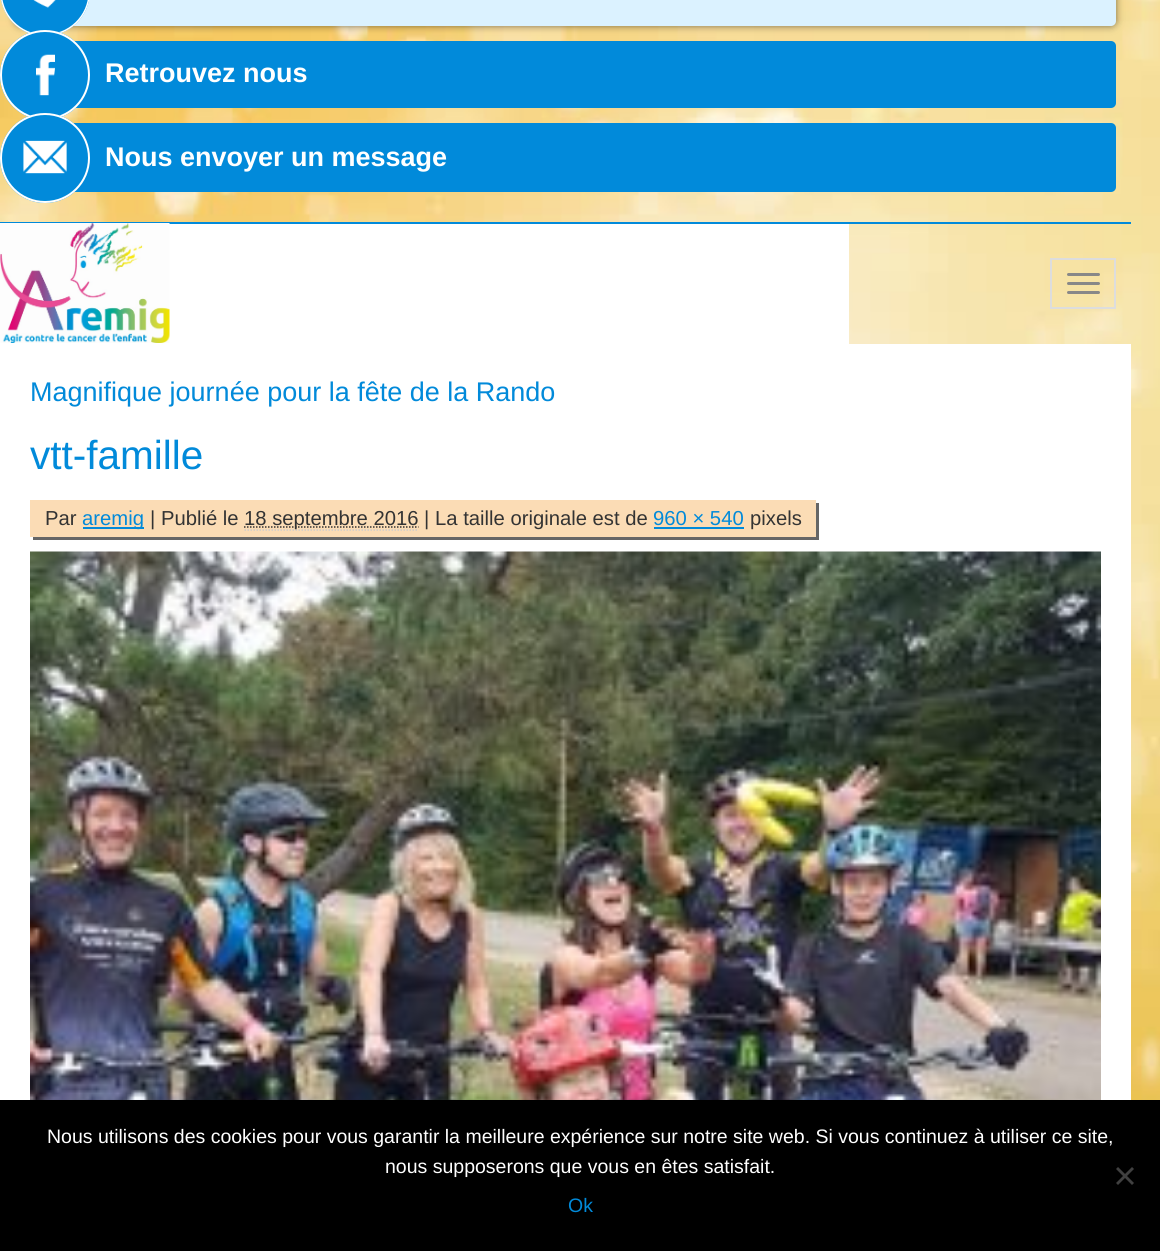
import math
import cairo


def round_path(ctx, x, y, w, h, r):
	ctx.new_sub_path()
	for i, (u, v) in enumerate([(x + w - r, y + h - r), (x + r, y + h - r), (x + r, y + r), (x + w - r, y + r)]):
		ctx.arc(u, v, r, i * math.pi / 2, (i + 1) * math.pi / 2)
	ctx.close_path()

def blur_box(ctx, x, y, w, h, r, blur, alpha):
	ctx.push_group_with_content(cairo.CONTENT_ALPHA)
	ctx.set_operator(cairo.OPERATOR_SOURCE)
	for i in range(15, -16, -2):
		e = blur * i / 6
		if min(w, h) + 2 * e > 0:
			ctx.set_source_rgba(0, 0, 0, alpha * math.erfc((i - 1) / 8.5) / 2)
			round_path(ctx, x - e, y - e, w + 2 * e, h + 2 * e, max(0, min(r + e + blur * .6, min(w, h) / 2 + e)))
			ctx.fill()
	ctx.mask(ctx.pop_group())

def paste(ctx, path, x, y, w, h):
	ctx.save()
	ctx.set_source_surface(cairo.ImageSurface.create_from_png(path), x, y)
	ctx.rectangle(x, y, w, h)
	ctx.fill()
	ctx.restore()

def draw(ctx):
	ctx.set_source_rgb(1, 1, 1)
	ctx.paint()
	paste(ctx, 'media/1.png', 0, 0, 1160, 1100)
	ctx.set_source_rgb(0.004, 0.541, 0.855)
	ctx.rectangle(0, 222, 1131, 2)
	ctx.fill()
	ctx.set_source_rgb(0, 0, 0)
	blur_box(ctx, 15, -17, 1101, 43, 5, 4, 0.5)
	ctx.set_source_rgb(0.859, 0.949, 1)
	round_path(ctx, 15, -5, 1101, 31, 5)
	ctx.fill()
	ctx.set_source_rgb(0.004, 0.541, 0.855)
	ctx.new_path()
	ctx.move_to(37, -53)
	ctx.curve_to(62, -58, 85, -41, 89, -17)
	ctx.curve_to(94, 8, 77, 31, 53, 35)
	ctx.curve_to(28, 40, 5, 23, 1, -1)
	ctx.curve_to(-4, -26, 13, -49, 37, -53)
	ctx.close_path()
	ctx.fill()
	paste(ctx, 'media/2.png', 33, 0, 23, 8)
	ctx.new_path()
	ctx.move_to(37.5, -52.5)
	ctx.curve_to(61.5, -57, 84.5, -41, 88.5, -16.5)
	ctx.curve_to(93, 7.5, 77, 30.5, 52.5, 34.5)
	ctx.curve_to(28.5, 39, 5.5, 23, 1.5, -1.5)
	ctx.curve_to(-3, -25.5, 13, -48.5, 37.5, -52.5)
	ctx.close_path()
	ctx.set_source_rgb(1, 1, 1)
	ctx.set_line_width(1.5)
	ctx.stroke()
	ctx.set_source_rgb(0.004, 0.541, 0.855)
	round_path(ctx, 15, 41, 1101, 67, 5)
	ctx.fill()
	ctx.arc(45, 75, 45, 0, 2 * math.pi)
	ctx.fill()
	paste(ctx, 'media/3.png', 36, 54, 19, 42)
	ctx.arc(45, 75, 44, 0, 2 * math.pi)
	ctx.set_source_rgb(1, 1, 1)
	ctx.set_line_width(2)
	ctx.stroke()
	ctx.select_font_face('Liberation Sans', cairo.FONT_SLANT_NORMAL, cairo.FONT_WEIGHT_BOLD)
	ctx.set_font_size(27)
	ctx.move_to(105, 82)
	ctx.show_text('Retrouvez nous')
	ctx.set_source_rgb(0.004, 0.541, 0.855)
	round_path(ctx, 15, 123, 1101, 69, 5)
	ctx.fill()
	ctx.arc(45, 158, 45, 0, 2 * math.pi)
	ctx.fill()
	paste(ctx, 'media/4.png', 23, 140, 44, 34)
	ctx.arc(45, 158, 44, 0, 2 * math.pi)
	ctx.set_source_rgb(1, 1, 1)
	ctx.stroke()
	ctx.move_to(105, 166)
	ctx.show_text('Nous envoyer un message')
	ctx.rectangle(0, 224, 849, 120)
	ctx.fill()
	paste(ctx, 'media/5.png', 0, 223, 170, 120)
	ctx.rectangle(1051, 259, 64, 49)
	ctx.set_source_rgb(0.867, 0.867, 0.867)
	ctx.stroke()
	ctx.set_source_rgb(0.533, 0.533, 0.533)
	round_path(ctx, 1067, 273, 33, 3, 1.5)
	ctx.fill()
	round_path(ctx, 1067, 282, 33, 3, 1.5)
	ctx.fill()
	round_path(ctx, 1067, 291, 33, 3, 1.5)
	ctx.fill()
	ctx.set_source_rgb(1, 1, 1)
	ctx.rectangle(0, 344, 1131, 756)
	ctx.fill()
	ctx.select_font_face('Liberation Sans')
	ctx.set_source_rgb(0.004, 0.541, 0.855)
	ctx.move_to(30, 401)
	ctx.show_text('Magnifique journée pour la fête de la Rando')
	ctx.set_font_size(40.5)
	ctx.move_to(30, 469)
	ctx.show_text('vtt-famille')
	ctx.set_source_rgb(0.4, 0.4, 0.4)
	ctx.new_path()
	ctx.move_to(33, 537)
	ctx.line_to(33, 540)
	ctx.line_to(819, 540)
	ctx.line_to(819, 503)
	ctx.line_to(816, 503)
	ctx.line_to(816, 537)
	ctx.close_path()
	ctx.fill()
	ctx.set_source_rgb(0.984, 0.863, 0.71)
	ctx.rectangle(30, 500, 786, 37)
	ctx.fill()
	ctx.set_font_size(20.25)
	ctx.set_source_rgb(0.2, 0.2, 0.2)
	ctx.move_to(45, 525)
	ctx.show_text('Par')
	ctx.set_source_rgb(0.004, 0.541, 0.855)
	ctx.rectangle(83, 527, 61, 2)
	ctx.fill()
	ctx.move_to(82, 525)
	ctx.show_text('aremig')
	ctx.set_source_rgb(0.2, 0.2, 0.2)
	ctx.move_to(150, 525)
	ctx.show_text('| Publié le')
	ctx.new_path()
	ctx.move_to(244.5, 530)
	ctx.line_to(418.5, 530)
	ctx.set_source_rgb(0.8, 0.8, 0.8)
	ctx.set_line_width(1.5)
	ctx.set_dash([1.5, 1.5])
	ctx.stroke()
	ctx.new_path()
	ctx.move_to(244, 527)
	ctx.line_to(418.5, 527)
	ctx.set_source_rgb(0.2, 0.2, 0.2)
	ctx.stroke()
	ctx.move_to(244, 525)
	ctx.show_text('18 septembre 2016 | La taille originale est de')
	ctx.set_source_rgb(0.004, 0.541, 0.855)
	ctx.move_to(653, 525)
	ctx.show_text('960 × 540')
	ctx.rectangle(654, 527, 90, 2)
	ctx.fill()
	ctx.set_source_rgb(0.2, 0.2, 0.2)
	ctx.move_to(750, 525)
	ctx.show_text('pixels')
	paste(ctx, 'media/6.png', 30, 551, 1071, 549)
	ctx.set_source_rgb(0, 0, 0)
	ctx.rectangle(0, 1100, 1160, 151)
	ctx.fill()
	ctx.set_font_size(19.5)
	ctx.set_source_rgb(1, 1, 1)
	ctx.move_to(47, 1143)
	ctx.show_text('Nous utilisons des cookies pour vous garantir la meilleure expérience sur notre site web. Si vous continuez à utiliser ce site,')
	ctx.move_to(385, 1173)
	ctx.show_text('nous supposerons que vous en êtes satisfait.')
	ctx.set_source_rgb(0.251, 0.251, 0.251)
	ctx.new_path()
	ctx.move_to(1132, 1167)
	ctx.line_to(1134, 1169)
	ctx.line_to(1118, 1185)
	ctx.line_to(1116, 1183)
	ctx.close_path()
	ctx.fill()
	ctx.new_path()
	ctx.move_to(1116, 1169)
	ctx.line_to(1118, 1167)
	ctx.line_to(1134, 1183)
	ctx.line_to(1132, 1185)
	ctx.close_path()
	ctx.fill()
	ctx.set_source_rgb(0.004, 0.541, 0.855)
	ctx.move_to(568, 1212)
	ctx.show_text('Ok')


surface = cairo.ImageSurface(cairo.FORMAT_RGB24, 1160, 1251)
ctx = cairo.Context(surface)
options = cairo.FontOptions()
options.set_hint_metrics(cairo.HINT_METRICS_OFF)
options.set_hint_style(cairo.HINT_STYLE_NONE)
ctx.set_font_options(options)
ctx.set_miter_limit(4)
draw(ctx)
surface.write_to_png('image.png')
